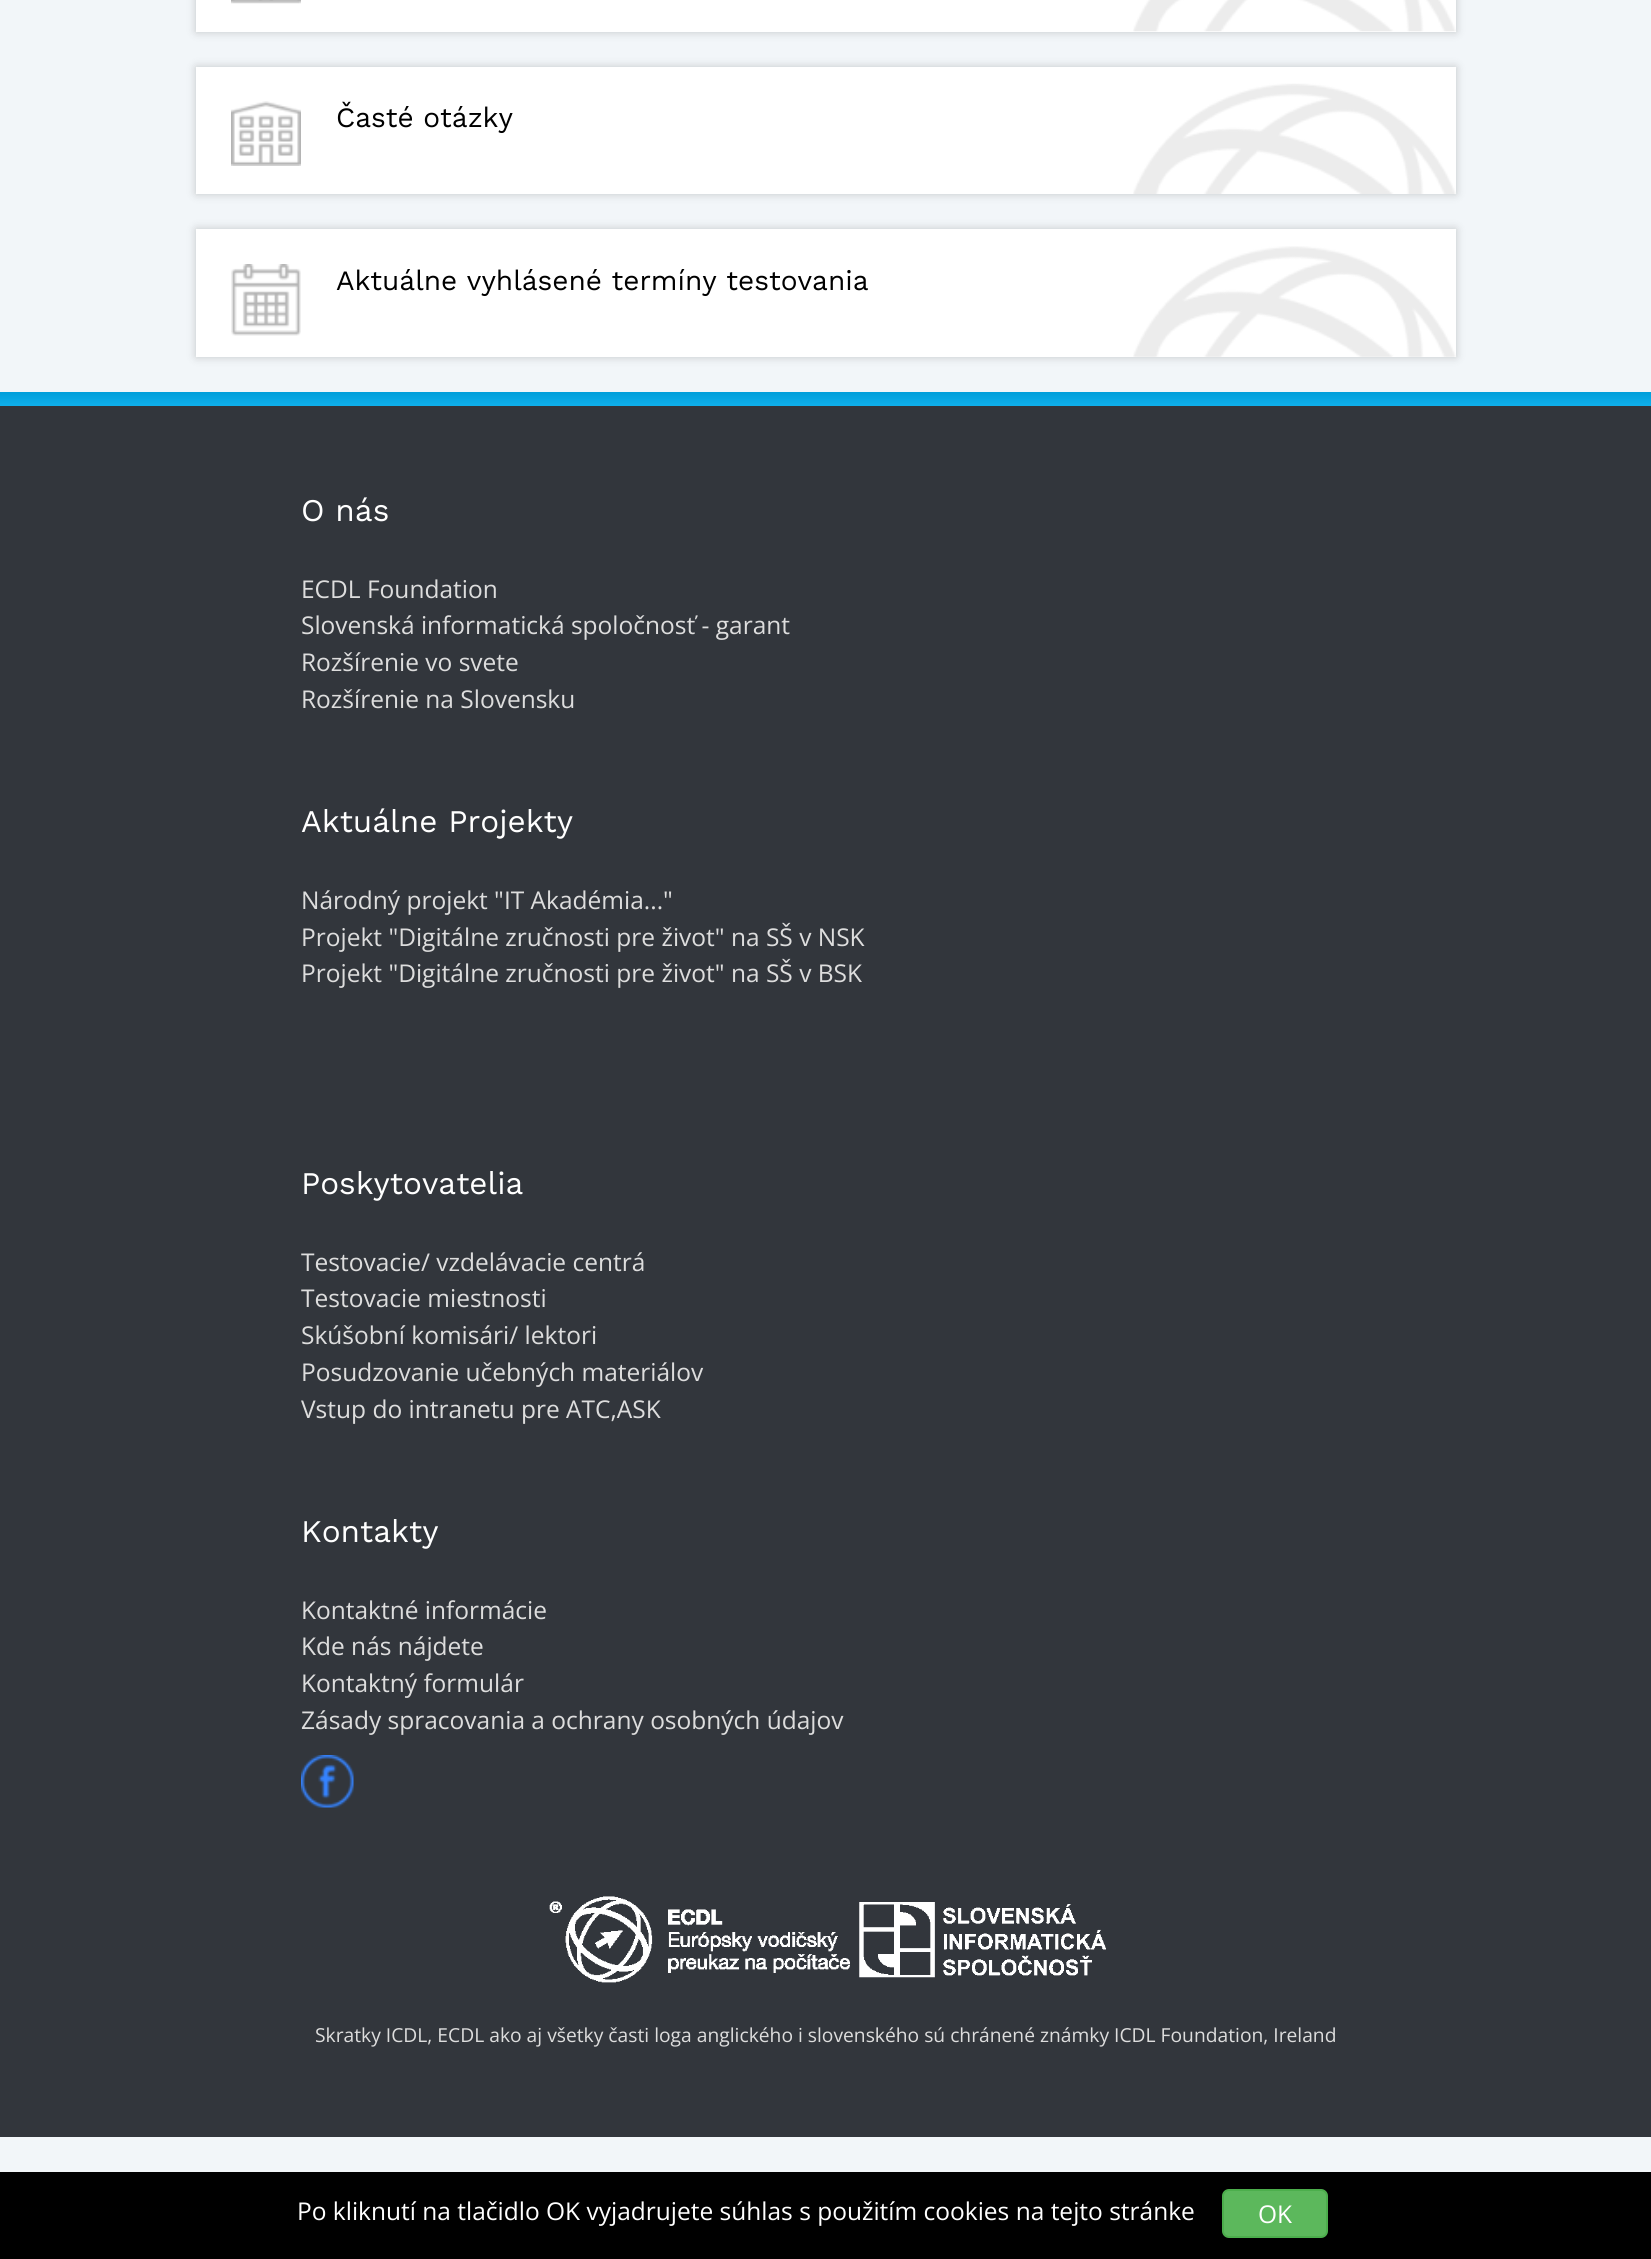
import math
import cairo


def round_path(ctx, x, y, w, h, r):
	ctx.new_sub_path()
	for i, (u, v) in enumerate([(x + w - r, y + h - r), (x + r, y + h - r), (x + r, y + r), (x + w - r, y + r)]):
		ctx.arc(u, v, r, i * math.pi / 2, (i + 1) * math.pi / 2)
	ctx.close_path()

def blur_box(ctx, x, y, w, h, r, blur, alpha):
	ctx.push_group_with_content(cairo.CONTENT_ALPHA)
	ctx.set_operator(cairo.OPERATOR_SOURCE)
	for i in range(15, -16, -2):
		e = blur * i / 6
		if min(w, h) + 2 * e > 0:
			ctx.set_source_rgba(0, 0, 0, alpha * math.erfc((i - 1) / 8.5) / 2)
			round_path(ctx, x - e, y - e, w + 2 * e, h + 2 * e, max(0, min(r + e + blur * .6, min(w, h) / 2 + e)))
			ctx.fill()
	ctx.mask(ctx.pop_group())

def paste(ctx, path, x, y, w, h):
	ctx.save()
	ctx.set_source_surface(cairo.ImageSurface.create_from_png(path), x, y)
	ctx.rectangle(x, y, w, h)
	ctx.fill()
	ctx.restore()

def draw(ctx):
	ctx.set_source_rgb(0.949, 0.961, 0.976)
	ctx.paint()
	ctx.set_source_rgb(0, 0, 0)
	blur_box(ctx, 196, -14, 1260, 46, 0, 4.5, 0.2)
	ctx.set_source_rgb(1, 1, 1)
	ctx.rectangle(196, 0, 1260, 32)
	ctx.fill()
	paste(ctx, 'media/1.png', 1133, 0, 323, 32)
	paste(ctx, 'media/2.png', 231, 0, 70, 4)
	ctx.set_source_rgb(0, 0, 0)
	blur_box(ctx, 196, 67, 1260, 127, 0, 4.5, 0.2)
	ctx.set_source_rgb(1, 1, 1)
	ctx.rectangle(196, 67, 1260, 127)
	ctx.fill()
	paste(ctx, 'media/3.png', 1133, 83, 323, 111)
	paste(ctx, 'media/4.png', 231, 101, 70, 65)
	ctx.select_font_face('Work Sans')
	ctx.set_font_size(28)
	ctx.set_source_rgb(0, 0, 0)
	ctx.move_to(336, 127)
	ctx.show_text('Časté otázky')
	ctx.set_source_rgb(0, 0, 0)
	blur_box(ctx, 196, 229, 1260, 128, 0, 4.5, 0.2)
	ctx.set_source_rgb(1, 1, 1)
	ctx.rectangle(196, 229, 1260, 128)
	ctx.fill()
	paste(ctx, 'media/5.png', 1133, 246, 323, 111)
	paste(ctx, 'media/6.png', 231, 264, 70, 72)
	ctx.set_source_rgb(0, 0, 0)
	ctx.move_to(336, 290)
	ctx.show_text('Aktuálne vyhlásené termíny testovania')
	gradient = cairo.LinearGradient(826, 392, 826, 406)
	gradient.add_color_stop_rgba(0, 0, 0.62, 0.855, 1)
	gradient.add_color_stop_rgba(1, 0.063, 0.69, 0.925, 1)
	ctx.set_source(gradient)
	ctx.rectangle(0, 392, 1651, 14)
	ctx.fill()
	ctx.set_source_rgb(0.196, 0.212, 0.235)
	ctx.rectangle(0, 406, 1651, 1731)
	ctx.fill()
	ctx.set_font_size(31.5)
	ctx.set_source_rgb(1, 1, 1)
	ctx.move_to(301, 521)
	ctx.show_text('O nás')
	ctx.select_font_face('Open Sans')
	ctx.set_font_size(24.5)
	ctx.set_source_rgb(0.867, 0.867, 0.867)
	for x, y, s in [
		(301, 598, 'ECDL Foundation'),
		(301, 634, 'Slovenská informatická spoločnosť - garant'),
		(301, 671, 'Rozšírenie vo svete'),
		(301, 708, 'Rozšírenie na Slovensku'),
	]:
		ctx.move_to(x, y)
		ctx.show_text(s)
	ctx.select_font_face('Work Sans')
	ctx.set_font_size(31.5)
	ctx.set_source_rgb(1, 1, 1)
	ctx.move_to(301, 832)
	ctx.show_text('Aktuálne Projekty')
	ctx.select_font_face('Open Sans')
	ctx.set_font_size(24.5)
	ctx.set_source_rgb(0.867, 0.867, 0.867)
	for x, y, s in [
		(301, 909, 'Národný projekt "IT Akadémia..."'),
		(301, 946, 'Projekt "Digitálne zručnosti pre život" na SŠ v NSK'),
		(301, 982, 'Projekt "Digitálne zručnosti pre život" na SŠ v BSK'),
	]:
		ctx.move_to(x, y)
		ctx.show_text(s)
	ctx.select_font_face('Work Sans')
	ctx.set_font_size(31.5)
	ctx.set_source_rgb(1, 1, 1)
	ctx.move_to(301, 1194)
	ctx.show_text('Poskytovatelia')
	ctx.select_font_face('Open Sans')
	ctx.set_font_size(24.5)
	ctx.set_source_rgb(0.867, 0.867, 0.867)
	for x, y, s in [
		(301, 1271, 'Testovacie/ vzdelávacie centrá'),
		(301, 1307, 'Testovacie miestnosti'),
		(301, 1344, 'Skúšobní komisári/ lektori'),
		(301, 1381, 'Posudzovanie učebných materiálov'),
		(301, 1418, 'Vstup do intranetu pre ATC,ASK'),
	]:
		ctx.move_to(x, y)
		ctx.show_text(s)
	ctx.select_font_face('Work Sans')
	ctx.set_font_size(31.5)
	ctx.set_source_rgb(1, 1, 1)
	ctx.move_to(301, 1542)
	ctx.show_text('Kontakty')
	ctx.select_font_face('Open Sans')
	ctx.set_font_size(24.5)
	ctx.set_source_rgb(0.867, 0.867, 0.867)
	for x, y, s in [
		(301, 1619, 'Kontaktné informácie'),
		(301, 1655, 'Kde nás nájdete'),
		(301, 1692, 'Kontaktný formulár'),
		(301, 1729, 'Zásady spracovania a ochrany osobných údajov'),
	]:
		ctx.move_to(x, y)
		ctx.show_text(s)
	paste(ctx, 'media/7.png', 301, 1755, 53, 53)
	paste(ctx, 'media/8.png', 549, 1896, 301, 87)
	paste(ctx, 'media/9.png', 859, 1902, 247, 76)
	ctx.set_font_size(19.25)
	ctx.move_to(315, 2042)
	ctx.show_text('Skratky ICDL, ECDL ako aj všetky časti loga anglického i slovenského sú chránené známky ICDL Foundation, Ireland')
	ctx.set_source_rgb(0, 0, 0)
	ctx.rectangle(0, 2172, 1651, 87)
	ctx.fill()
	ctx.set_font_size(24.5)
	ctx.set_source_rgb(1, 1, 1)
	ctx.move_to(297, 2220)
	ctx.show_text('Po kliknutí na tlačidlo OK vyjadrujete súhlas s použitím cookies na tejto stránke')
	ctx.set_source_rgb(0.361, 0.722, 0.361)
	round_path(ctx, 1223, 2190, 104, 47, 6)
	ctx.fill_preserve()
	ctx.set_source_rgb(0.298, 0.682, 0.298)
	ctx.stroke()
	ctx.set_source_rgb(1, 1, 1)
	ctx.move_to(1258, 2223)
	ctx.show_text('OK')


surface = cairo.ImageSurface(cairo.FORMAT_RGB24, 1651, 2259)
ctx = cairo.Context(surface)
options = cairo.FontOptions()
options.set_hint_metrics(cairo.HINT_METRICS_OFF)
options.set_hint_style(cairo.HINT_STYLE_NONE)
ctx.set_font_options(options)
ctx.set_miter_limit(4)
draw(ctx)
surface.write_to_png('image.png')
